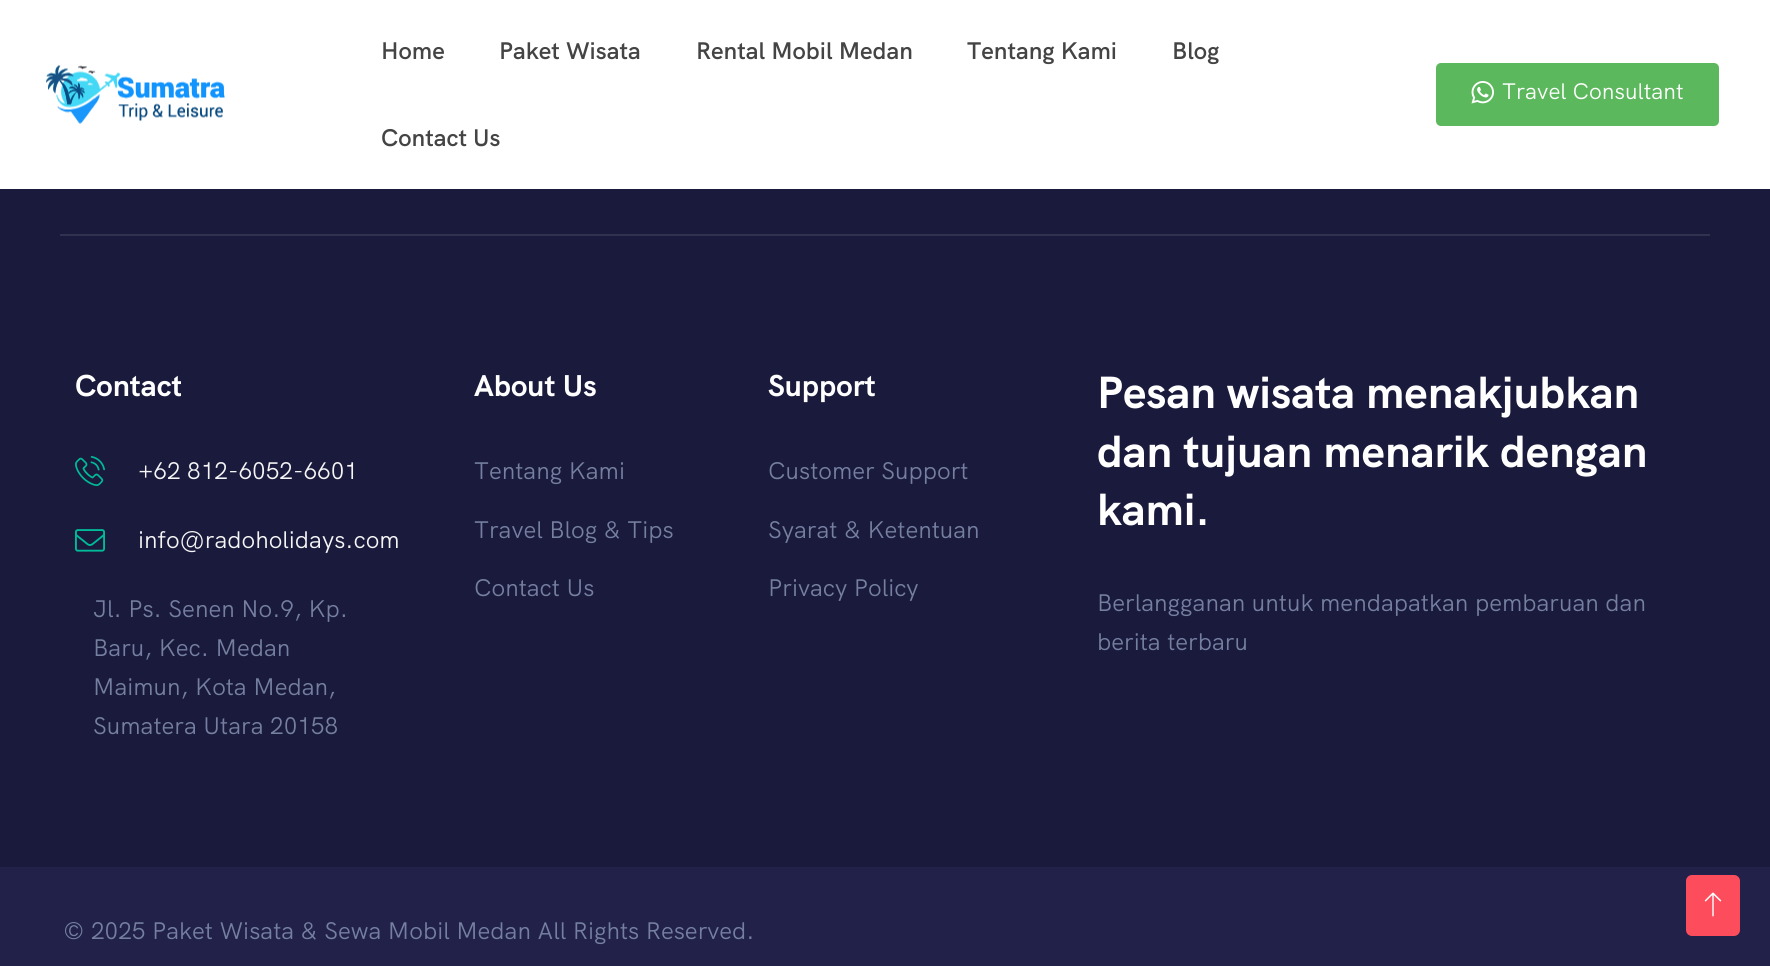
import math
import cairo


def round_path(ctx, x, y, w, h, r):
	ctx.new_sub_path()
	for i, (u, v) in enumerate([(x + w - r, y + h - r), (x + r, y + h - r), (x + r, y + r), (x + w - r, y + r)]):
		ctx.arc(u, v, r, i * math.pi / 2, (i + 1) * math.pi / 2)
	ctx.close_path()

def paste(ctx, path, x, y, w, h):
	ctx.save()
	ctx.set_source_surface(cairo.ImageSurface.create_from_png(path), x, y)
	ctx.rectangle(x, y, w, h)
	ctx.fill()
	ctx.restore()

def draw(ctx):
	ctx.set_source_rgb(0.102, 0.102, 0.239)
	ctx.paint()
	ctx.set_source_rgb(1, 1, 1)
	ctx.rectangle(0, 0, 1770, 189)
	ctx.fill()
	paste(ctx, 'media/1.png', 46, 65, 179, 59)
	ctx.select_font_face('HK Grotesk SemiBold')
	ctx.set_font_size(24)
	ctx.set_source_rgb(0.267, 0.267, 0.267)
	for x, y, s in [
		(381, 59, 'Home'),
		(499, 59, 'Paket Wisata'),
		(696, 59, 'Rental Mobil Medan'),
		(967, 59, 'Tentang Kami'),
		(1172, 59, 'Blog'),
		(381, 146, 'Contact Us'),
	]:
		ctx.move_to(x, y)
		ctx.show_text(s)
	ctx.set_source_rgb(0.361, 0.722, 0.361)
	round_path(ctx, 1436, 63, 283, 63, 5)
	ctx.fill()
	paste(ctx, 'media/2.png', 1471, 81, 23, 23)
	ctx.select_font_face('HK Grotesk')
	ctx.set_font_size(22.5)
	ctx.set_source_rgb(1, 1, 1)
	ctx.move_to(1502, 99)
	ctx.show_text('Travel Consultant')
	ctx.set_source_rgb(0.192, 0.192, 0.314)
	ctx.rectangle(60, 234, 1650, 2)
	ctx.fill()
	ctx.select_font_face('HK Grotesk', cairo.FONT_SLANT_NORMAL, cairo.FONT_WEIGHT_BOLD)
	ctx.set_font_size(30)
	ctx.set_source_rgb(1, 1, 1)
	ctx.move_to(75, 396)
	ctx.show_text('Contact')
	paste(ctx, 'media/3.png', 75, 456, 30, 30)
	ctx.select_font_face('HK Grotesk')
	ctx.set_font_size(24)
	ctx.set_source_rgb(0.961, 0.961, 0.961)
	ctx.move_to(138, 479)
	ctx.show_text('+62 812-6052-6601')
	paste(ctx, 'media/4.png', 75, 529, 30, 23)
	ctx.move_to(138, 548)
	ctx.show_text('info@radoholidays.com')
	ctx.set_source_rgb(0.459, 0.502, 0.627)
	for x, y, s in [
		(93, 617, 'Jl. Ps. Senen No.9, Kp.'),
		(93, 656, 'Baru, Kec. Medan'),
		(93, 695, 'Maimun, Kota Medan,'),
		(93, 734, 'Sumatera Utara 20158'),
	]:
		ctx.move_to(x, y)
		ctx.show_text(s)
	ctx.select_font_face('HK Grotesk', cairo.FONT_SLANT_NORMAL, cairo.FONT_WEIGHT_BOLD)
	ctx.set_font_size(30)
	ctx.set_source_rgb(1, 1, 1)
	ctx.move_to(474, 396)
	ctx.show_text('About Us')
	ctx.select_font_face('HK Grotesk')
	ctx.set_font_size(24)
	ctx.set_source_rgb(0.459, 0.502, 0.627)
	for x, y, s in [
		(474, 479, 'Tentang Kami'),
		(474, 538, 'Travel Blog & Tips'),
		(474, 596, 'Contact Us'),
	]:
		ctx.move_to(x, y)
		ctx.show_text(s)
	ctx.select_font_face('HK Grotesk', cairo.FONT_SLANT_NORMAL, cairo.FONT_WEIGHT_BOLD)
	ctx.set_font_size(30)
	ctx.set_source_rgb(1, 1, 1)
	ctx.move_to(768, 396)
	ctx.show_text('Support')
	ctx.select_font_face('HK Grotesk')
	ctx.set_font_size(24)
	ctx.set_source_rgb(0.459, 0.502, 0.627)
	for x, y, s in [
		(768, 479, 'Customer Support'),
		(768, 538, 'Syarat & Ketentuan'),
		(768, 596, 'Privacy Policy'),
	]:
		ctx.move_to(x, y)
		ctx.show_text(s)
	ctx.select_font_face('HK Grotesk', cairo.FONT_SLANT_NORMAL, cairo.FONT_WEIGHT_BOLD)
	ctx.set_font_size(45)
	ctx.set_source_rgb(1, 1, 1)
	for x, y, s in [
		(1097, 408, 'Pesan wisata menakjubkan'),
		(1097, 467, 'dan tujuan menarik dengan'),
		(1097, 525, 'kami.'),
	]:
		ctx.move_to(x, y)
		ctx.show_text(s)
	ctx.select_font_face('HK Grotesk')
	ctx.set_font_size(24)
	ctx.set_source_rgb(0.459, 0.502, 0.627)
	ctx.move_to(1097, 611)
	ctx.show_text('Berlangganan untuk mendapatkan pembaruan dan')
	ctx.move_to(1097, 650)
	ctx.show_text('berita terbaru')
	ctx.set_source_rgb(0.129, 0.129, 0.29)
	ctx.rectangle(0, 867, 1770, 99)
	ctx.fill()
	ctx.set_source_rgb(0.459, 0.502, 0.627)
	ctx.move_to(63, 939)
	ctx.show_text('© 2025 Paket Wisata & Sewa Mobil Medan All Rights Reserved.')
	ctx.set_source_rgb(0.992, 0.298, 0.361)
	round_path(ctx, 1686, 875, 54, 61, 6)
	ctx.fill()
	paste(ctx, 'media/5.png', 1704, 892, 18, 25)


surface = cairo.ImageSurface(cairo.FORMAT_RGB24, 1770, 966)
ctx = cairo.Context(surface)
options = cairo.FontOptions()
options.set_hint_metrics(cairo.HINT_METRICS_OFF)
options.set_hint_style(cairo.HINT_STYLE_NONE)
ctx.set_font_options(options)
ctx.set_miter_limit(4)
draw(ctx)
surface.write_to_png('image.png')
